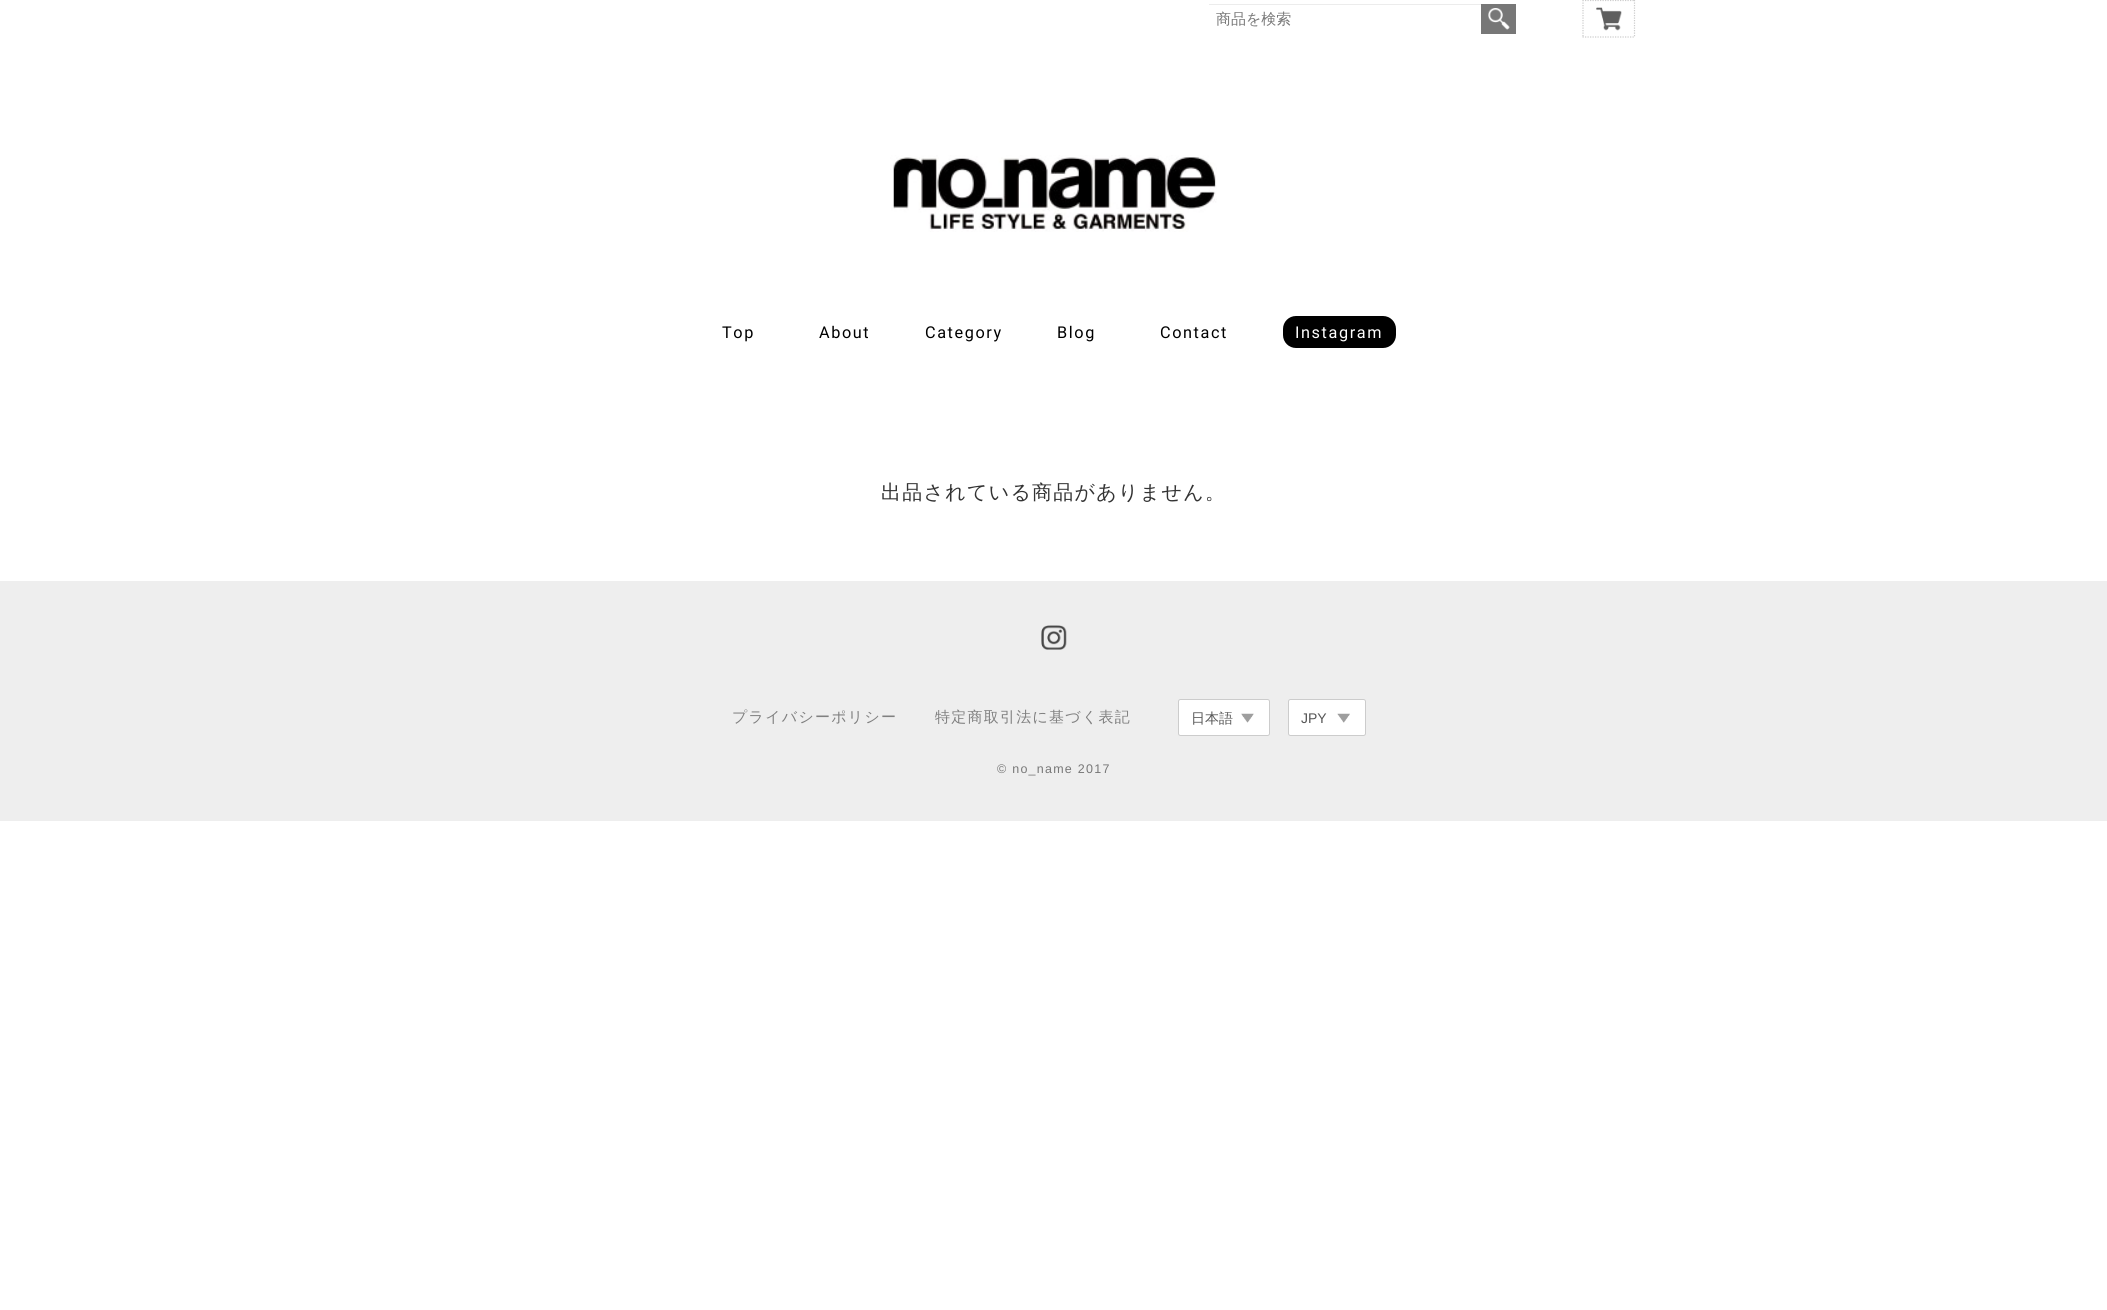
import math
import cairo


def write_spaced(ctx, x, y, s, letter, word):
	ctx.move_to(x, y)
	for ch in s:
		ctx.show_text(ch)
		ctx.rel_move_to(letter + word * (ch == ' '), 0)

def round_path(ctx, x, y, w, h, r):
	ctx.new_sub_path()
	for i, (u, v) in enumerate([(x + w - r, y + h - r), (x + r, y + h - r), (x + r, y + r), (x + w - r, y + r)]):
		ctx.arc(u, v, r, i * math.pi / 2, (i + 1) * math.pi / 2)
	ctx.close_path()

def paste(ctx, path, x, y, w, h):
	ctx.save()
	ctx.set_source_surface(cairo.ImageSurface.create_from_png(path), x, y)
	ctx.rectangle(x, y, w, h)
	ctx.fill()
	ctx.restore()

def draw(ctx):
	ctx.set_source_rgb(1, 1, 1)
	ctx.paint()
	ctx.set_source_rgb(0.925, 0.925, 0.925)
	ctx.rectangle(1209, 4, 272, 1)
	ctx.fill()
	ctx.select_font_face('WenQuanYi Zen Hei Medium')
	ctx.set_font_size(15)
	ctx.set_source_rgb(0.467, 0.467, 0.467)
	ctx.move_to(1216, 24)
	ctx.show_text('商品を検索')
	ctx.rectangle(1481, 4, 35, 30)
	ctx.fill()
	paste(ctx, 'media/1.png', 1488, 8, 22, 22)
	ctx.new_path()
	ctx.move_to(1582.5, 0.5)
	ctx.line_to(1635, 0.5)
	ctx.move_to(1634.5, 0)
	ctx.line_to(1634.5, 37.5)
	ctx.move_to(1582.5, 37)
	ctx.line_to(1635, 37)
	ctx.move_to(1583, 0)
	ctx.line_to(1583, 37.5)
	ctx.set_source_rgb(0.8, 0.8, 0.8)
	ctx.set_line_width(1.2)
	ctx.set_dash([1.25, 1.25])
	ctx.stroke()
	paste(ctx, 'media/2.png', 1596, 7, 26, 24)
	paste(ctx, 'media/3.png', 890, 155, 327, 77)
	ctx.select_font_face('Roboto')
	ctx.set_font_size(16.25)
	ctx.set_source_rgb(0, 0, 0)
	for x, y, s in [
		(722, 338, 'Top'),
		(819, 338, 'About'),
		(925, 338, 'Category'),
		(1057, 338, 'Blog'),
		(1160, 338, 'Contact'),
	]:
		write_spaced(ctx, x, y, s, 1.6, 0)
	round_path(ctx, 1283, 316, 113, 32, 13)
	ctx.fill()
	ctx.set_source_rgb(1, 1, 1)
	write_spaced(ctx, 1295, 338, 'Instagram', 1.6, 0)
	ctx.select_font_face('WenQuanYi Zen Hei Medium')
	ctx.set_font_size(20)
	ctx.set_source_rgb(0.2, 0.2, 0.2)
	write_spaced(ctx, 881, 499, '出品されている商品がありません。', 1.25, 0)
	ctx.set_source_rgb(0.933, 0.933, 0.933)
	ctx.rectangle(0, 581, 2107, 240)
	ctx.fill()
	paste(ctx, 'media/4.png', 1041, 625, 26, 25)
	ctx.set_font_size(15)
	ctx.set_source_rgb(0.502, 0.502, 0.502)
	write_spaced(ctx, 732, 722, 'プライバシーポリシー', 1.25, 0)
	write_spaced(ctx, 935, 722, '特定商取引法に基づく表記', 1.25, 0)
	ctx.set_source_rgb(1, 1, 1)
	round_path(ctx, 1178.5, 699.5, 91, 36, 2)
	ctx.fill_preserve()
	ctx.set_source_rgb(0.8, 0.8, 0.8)
	ctx.set_line_width(1)
	ctx.set_dash([])
	ctx.stroke()
	ctx.set_font_size(14)
	ctx.set_source_rgb(0.333, 0.333, 0.333)
	ctx.move_to(1191, 723)
	ctx.show_text('日本語')
	paste(ctx, 'media/5.png', 1241, 713, 13, 10)
	ctx.set_source_rgb(1, 1, 1)
	round_path(ctx, 1288.5, 699.5, 77, 36, 2)
	ctx.fill_preserve()
	ctx.set_source_rgb(0.8, 0.8, 0.8)
	ctx.stroke()
	ctx.select_font_face('Liberation Sans')
	ctx.set_source_rgb(0.333, 0.333, 0.333)
	ctx.move_to(1301, 723)
	ctx.show_text('JPY')
	paste(ctx, 'media/6.png', 1337, 713, 13, 10)
	ctx.set_font_size(12.5)
	ctx.set_source_rgb(0.467, 0.467, 0.467)
	write_spaced(ctx, 997, 773, '© no_name 2017', 1.25, 0)


surface = cairo.ImageSurface(cairo.FORMAT_RGB24, 2107, 1310)
ctx = cairo.Context(surface)
options = cairo.FontOptions()
options.set_hint_metrics(cairo.HINT_METRICS_OFF)
options.set_hint_style(cairo.HINT_STYLE_NONE)
ctx.set_font_options(options)
ctx.set_miter_limit(4)
draw(ctx)
surface.write_to_png('image.png')
